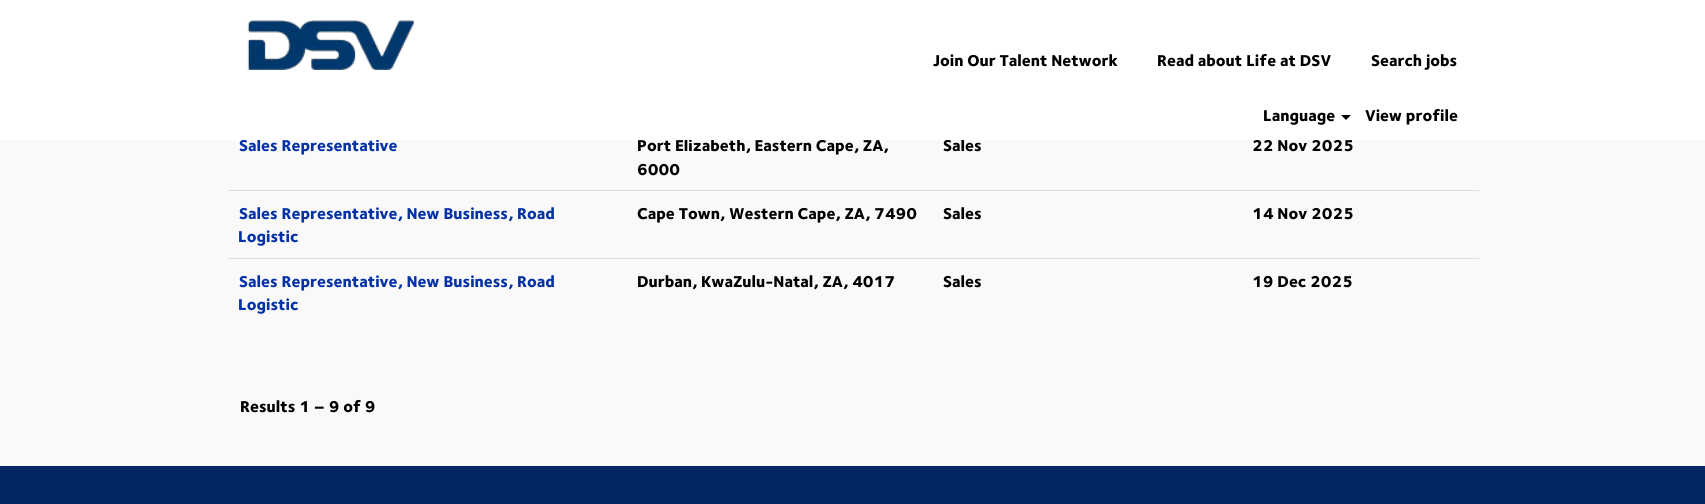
import math
import cairo


def paste(ctx, path, x, y, w, h):
	ctx.save()
	ctx.set_source_surface(cairo.ImageSurface.create_from_png(path), x, y)
	ctx.rectangle(x, y, w, h)
	ctx.fill()
	ctx.restore()

def draw(ctx):
	ctx.set_source_rgb(0.976, 0.976, 0.976)
	ctx.paint()
	ctx.select_font_face('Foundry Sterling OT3 ExtraBold')
	ctx.set_font_size(16.25)
	ctx.set_source_rgb(0.016, 0.192, 0.651)
	ctx.move_to(239, 151)
	ctx.show_text('Sales Representative')
	ctx.set_source_rgb(0, 0, 0)
	for x, y, s in [
		(637, 151, 'Port Elizabeth, Eastern Cape, ZA,'),
		(943, 151, 'Sales'),
		(1252, 151, '22 Nov 2025'),
	]:
		ctx.move_to(x, y)
		ctx.show_text(s)
	ctx.set_source_rgb(1, 1, 1)
	ctx.rectangle(0, 0, 1705, 140)
	ctx.fill()
	paste(ctx, 'media/1.png', 247, 20, 168, 50)
	ctx.set_source_rgb(0, 0, 0)
	for x, y, s in [
		(933, 66, 'Join Our Talent Network'),
		(1157, 66, 'Read about Life at DSV'),
		(1371, 66, 'Search jobs'),
		(1263, 121, 'Language'),
	]:
		ctx.move_to(x, y)
		ctx.show_text(s)
	ctx.new_path()
	ctx.move_to(1341, 115)
	ctx.line_to(1351, 115)
	ctx.line_to(1346, 120)
	ctx.close_path()
	ctx.fill()
	ctx.move_to(1365, 121)
	ctx.show_text('View profile')
	ctx.move_to(637, 175)
	ctx.show_text('6000')
	ctx.set_source_rgb(0.867, 0.867, 0.867)
	ctx.rectangle(228, 190, 1251, 1)
	ctx.fill()
	ctx.set_source_rgb(0.016, 0.192, 0.651)
	ctx.move_to(239, 219)
	ctx.show_text('Sales Representative, New Business, Road')
	ctx.move_to(238, 242)
	ctx.show_text('Logistic')
	ctx.set_source_rgb(0, 0, 0)
	for x, y, s in [
		(637, 219, 'Cape Town, Western Cape, ZA, 7490'),
		(943, 219, 'Sales'),
		(1252, 219, '14 Nov 2025'),
	]:
		ctx.move_to(x, y)
		ctx.show_text(s)
	ctx.set_source_rgb(0.867, 0.867, 0.867)
	ctx.rectangle(228, 258, 1251, 1)
	ctx.fill()
	ctx.set_source_rgb(0.016, 0.192, 0.651)
	ctx.move_to(239, 287)
	ctx.show_text('Sales Representative, New Business, Road')
	ctx.move_to(238, 310)
	ctx.show_text('Logistic')
	ctx.set_source_rgb(0, 0, 0)
	for x, y, s in [
		(637, 287, 'Durban, KwaZulu-Natal, ZA, 4017'),
		(943, 287, 'Sales'),
		(1252, 287, '19 Dec 2025'),
		(240, 412, 'Results 1 – 9 of 9'),
	]:
		ctx.move_to(x, y)
		ctx.show_text(s)
	ctx.set_source_rgb(0, 0.149, 0.392)
	ctx.rectangle(0, 466, 1705, 38)
	ctx.fill()


surface = cairo.ImageSurface(cairo.FORMAT_RGB24, 1705, 504)
ctx = cairo.Context(surface)
options = cairo.FontOptions()
options.set_hint_metrics(cairo.HINT_METRICS_OFF)
options.set_hint_style(cairo.HINT_STYLE_NONE)
ctx.set_font_options(options)
ctx.set_miter_limit(4)
draw(ctx)
surface.write_to_png('image.png')
